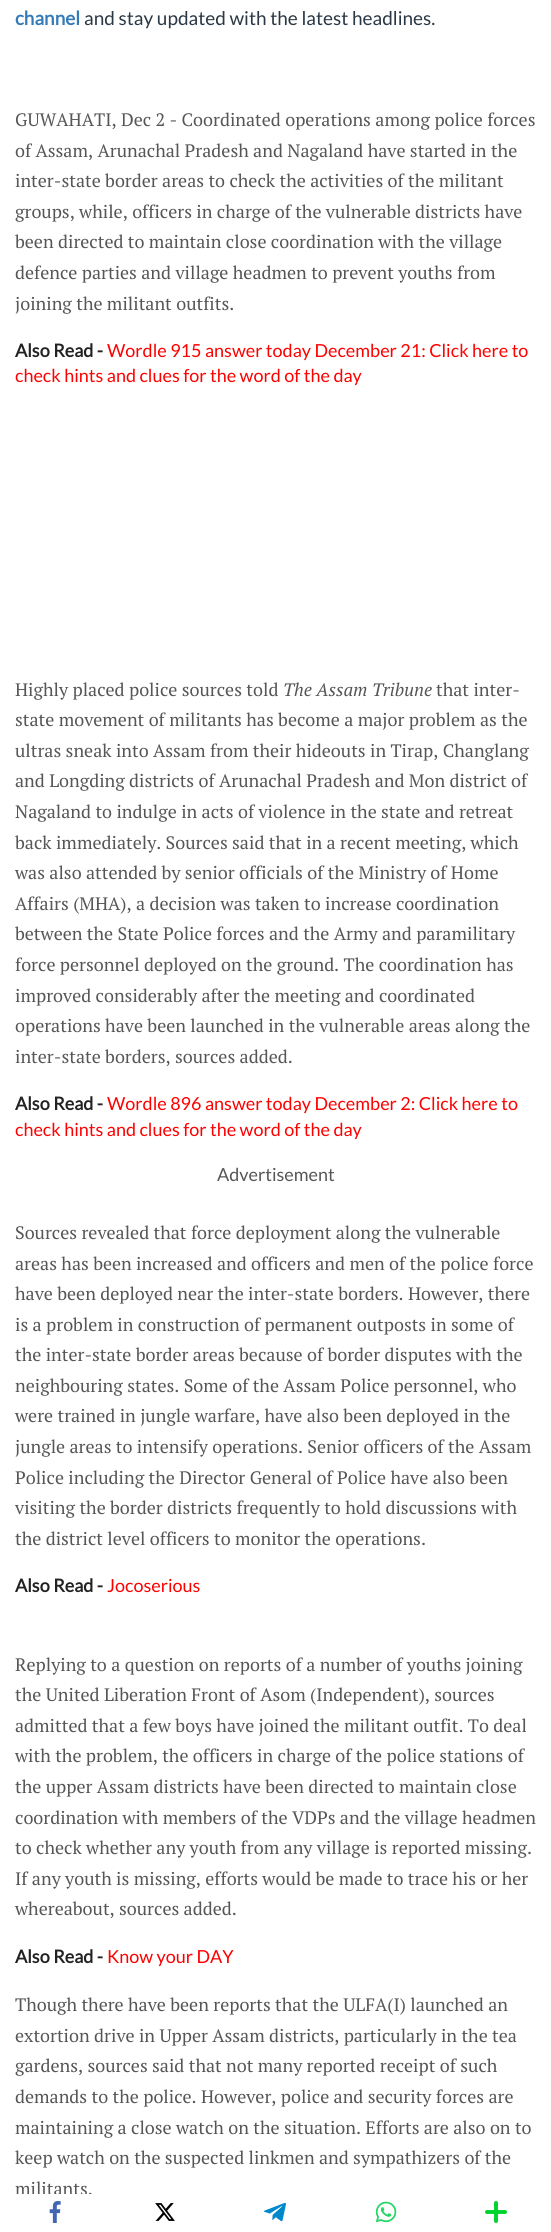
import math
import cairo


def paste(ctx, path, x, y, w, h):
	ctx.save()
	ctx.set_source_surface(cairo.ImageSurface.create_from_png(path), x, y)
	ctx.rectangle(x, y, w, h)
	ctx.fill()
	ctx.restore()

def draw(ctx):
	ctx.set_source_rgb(1, 1, 1)
	ctx.paint()
	ctx.select_font_face('Lato', cairo.FONT_SLANT_NORMAL, cairo.FONT_WEIGHT_BOLD)
	ctx.set_font_size(19)
	ctx.set_source_rgb(0.2, 0.478, 0.718)
	ctx.move_to(15, 25)
	ctx.show_text('channel')
	ctx.select_font_face('Lato')
	ctx.set_source_rgb(0.165, 0.216, 0.267)
	ctx.move_to(84, 25)
	ctx.show_text('and stay updated with the latest headlines.')
	ctx.select_font_face('PT Serif')
	ctx.set_font_size(18)
	ctx.set_source_rgb(0.337, 0.337, 0.337)
	for x, y, s in [
		(15, 126, 'GUWAHATI, Dec 2 - Coordinated operations among police forces'),
		(15, 157, 'of Assam, Arunachal Pradesh and Nagaland have started in the'),
		(15, 187, 'inter-state border areas to check the activities of the militant'),
		(15, 218, 'groups, while, officers in charge of the vulnerable districts have'),
		(15, 248, 'been directed to maintain close coordination with the village'),
		(15, 279, 'defence parties and village headmen to prevent youths from'),
		(15, 310, 'joining the militant outfits.'),
	]:
		ctx.move_to(x, y)
		ctx.show_text(s)
	ctx.select_font_face('Lato', cairo.FONT_SLANT_NORMAL, cairo.FONT_WEIGHT_BOLD)
	ctx.set_source_rgb(0.133, 0.133, 0.133)
	ctx.move_to(15, 357)
	ctx.show_text('Also Read -')
	ctx.select_font_face('Lato')
	ctx.set_source_rgb(1, 0, 0)
	ctx.move_to(107, 357)
	ctx.show_text('Wordle 915 answer today December 21: Click here to')
	ctx.move_to(15, 382)
	ctx.show_text('check hints and clues for the word of the day')
	ctx.select_font_face('PT Serif')
	ctx.set_source_rgb(0.337, 0.337, 0.337)
	ctx.move_to(15, 696)
	ctx.show_text('Highly placed police sources told')
	ctx.select_font_face('PT Serif', cairo.FONT_SLANT_ITALIC)
	ctx.move_to(283, 696)
	ctx.show_text('The Assam Tribune')
	ctx.select_font_face('PT Serif')
	for x, y, s in [
		(436, 696, 'that inter-'),
		(15, 726, 'state movement of militants has become a major problem as the'),
		(15, 757, 'ultras sneak into Assam from their hideouts in Tirap, Changlang'),
		(15, 787, 'and Longding districts of Arunachal Pradesh and Mon district of'),
		(15, 818, 'Nagaland to indulge in acts of violence in the state and retreat'),
		(15, 849, 'back immediately. Sources said that in a recent meeting, which'),
		(15, 879, 'was also attended by senior officials of the Ministry of Home'),
		(15, 910, 'Affairs (MHA), a decision was taken to increase coordination'),
		(15, 940, 'between the State Police forces and the Army and paramilitary'),
		(15, 971, 'force personnel deployed on the ground. The coordination has'),
		(15, 1002, 'improved considerably after the meeting and coordinated'),
		(15, 1032, 'operations have been launched in the vulnerable areas along the'),
		(15, 1063, 'inter-state borders, sources added.'),
	]:
		ctx.move_to(x, y)
		ctx.show_text(s)
	ctx.select_font_face('Lato', cairo.FONT_SLANT_NORMAL, cairo.FONT_WEIGHT_BOLD)
	ctx.set_source_rgb(0.133, 0.133, 0.133)
	ctx.move_to(15, 1110)
	ctx.show_text('Also Read -')
	ctx.select_font_face('Lato')
	ctx.set_source_rgb(1, 0, 0)
	ctx.move_to(107, 1110)
	ctx.show_text('Wordle 896 answer today December 2: Click here to')
	ctx.move_to(15, 1136)
	ctx.show_text('check hints and clues for the word of the day')
	ctx.set_source_rgb(0.337, 0.337, 0.337)
	ctx.move_to(217, 1181)
	ctx.show_text('Advertisement')
	ctx.select_font_face('PT Serif')
	for x, y, s in [
		(15, 1239, 'Sources revealed that force deployment along the vulnerable'),
		(15, 1270, 'areas has been increased and officers and men of the police force'),
		(15, 1300, 'have been deployed near the inter-state borders. However, there'),
		(15, 1331, 'is a problem in construction of permanent outposts in some of'),
		(15, 1361, 'the inter-state border areas because of border disputes with the'),
		(15, 1392, 'neighbouring states. Some of the Assam Police personnel, who'),
		(15, 1422, 'were trained in jungle warfare, have also been deployed in the'),
		(15, 1453, 'jungle areas to intensify operations. Senior officers of the Assam'),
		(15, 1484, 'Police including the Director General of Police have also been'),
		(15, 1514, 'visiting the border districts frequently to hold discussions with'),
		(15, 1545, 'the district level officers to monitor the operations.'),
	]:
		ctx.move_to(x, y)
		ctx.show_text(s)
	ctx.select_font_face('Lato', cairo.FONT_SLANT_NORMAL, cairo.FONT_WEIGHT_BOLD)
	ctx.set_source_rgb(0.133, 0.133, 0.133)
	ctx.move_to(15, 1592)
	ctx.show_text('Also Read -')
	ctx.select_font_face('Lato')
	ctx.set_source_rgb(1, 0, 0)
	ctx.move_to(107, 1592)
	ctx.show_text('Jocoserious')
	ctx.select_font_face('PT Serif')
	ctx.set_source_rgb(0.337, 0.337, 0.337)
	for x, y, s in [
		(15, 1671, 'Replying to a question on reports of a number of youths joining'),
		(15, 1701, 'the United Liberation Front of Asom (Independent), sources'),
		(15, 1732, 'admitted that a few boys have joined the militant outfit. To deal'),
		(15, 1762, 'with the problem, the officers in charge of the police stations of'),
		(15, 1793, 'the upper Assam districts have been directed to maintain close'),
		(15, 1824, 'coordination with members of the VDPs and the village headmen'),
		(15, 1854, 'to check whether any youth from any village is reported missing.'),
		(15, 1885, 'If any youth is missing, efforts would be made to trace his or her'),
		(15, 1915, 'whereabout, sources added.'),
	]:
		ctx.move_to(x, y)
		ctx.show_text(s)
	ctx.select_font_face('Lato', cairo.FONT_SLANT_NORMAL, cairo.FONT_WEIGHT_BOLD)
	ctx.set_source_rgb(0.133, 0.133, 0.133)
	ctx.move_to(15, 1963)
	ctx.show_text('Also Read -')
	ctx.select_font_face('Lato')
	ctx.set_source_rgb(1, 0, 0)
	ctx.move_to(107, 1963)
	ctx.show_text('Know your DAY')
	ctx.select_font_face('PT Serif')
	ctx.set_source_rgb(0.337, 0.337, 0.337)
	for x, y, s in [
		(15, 2011, 'Though there have been reports that the ULFA(I) launched an'),
		(15, 2042, 'extortion drive in Upper Assam districts, particularly in the tea'),
		(15, 2072, 'gardens, sources said that not many reported receipt of such'),
		(15, 2103, 'demands to the police. However, police and security forces are'),
		(15, 2134, 'maintaining a close watch on the situation. Efforts are also on to'),
		(15, 2164, 'keep watch on the suspected linkmen and sympathizers of the'),
		(15, 2195, 'militants.'),
	]:
		ctx.move_to(x, y)
		ctx.show_text(s)
	ctx.set_source_rgb(1, 1, 1)
	ctx.rectangle(15, 2194, 77, 2)
	ctx.fill()
	paste(ctx, 'media/1.png', 49, 2201, 12, 22)
	paste(ctx, 'media/2.png', 155, 2203, 20, 18)
	paste(ctx, 'media/3.png', 264, 2202, 22, 20)
	paste(ctx, 'media/4.png', 375, 2201, 22, 22)
	paste(ctx, 'media/5.png', 485, 2201, 22, 22)


surface = cairo.ImageSurface(cairo.FORMAT_RGB24, 551, 2232)
ctx = cairo.Context(surface)
options = cairo.FontOptions()
options.set_hint_metrics(cairo.HINT_METRICS_OFF)
options.set_hint_style(cairo.HINT_STYLE_NONE)
ctx.set_font_options(options)
ctx.set_miter_limit(4)
draw(ctx)
surface.write_to_png('image.png')
